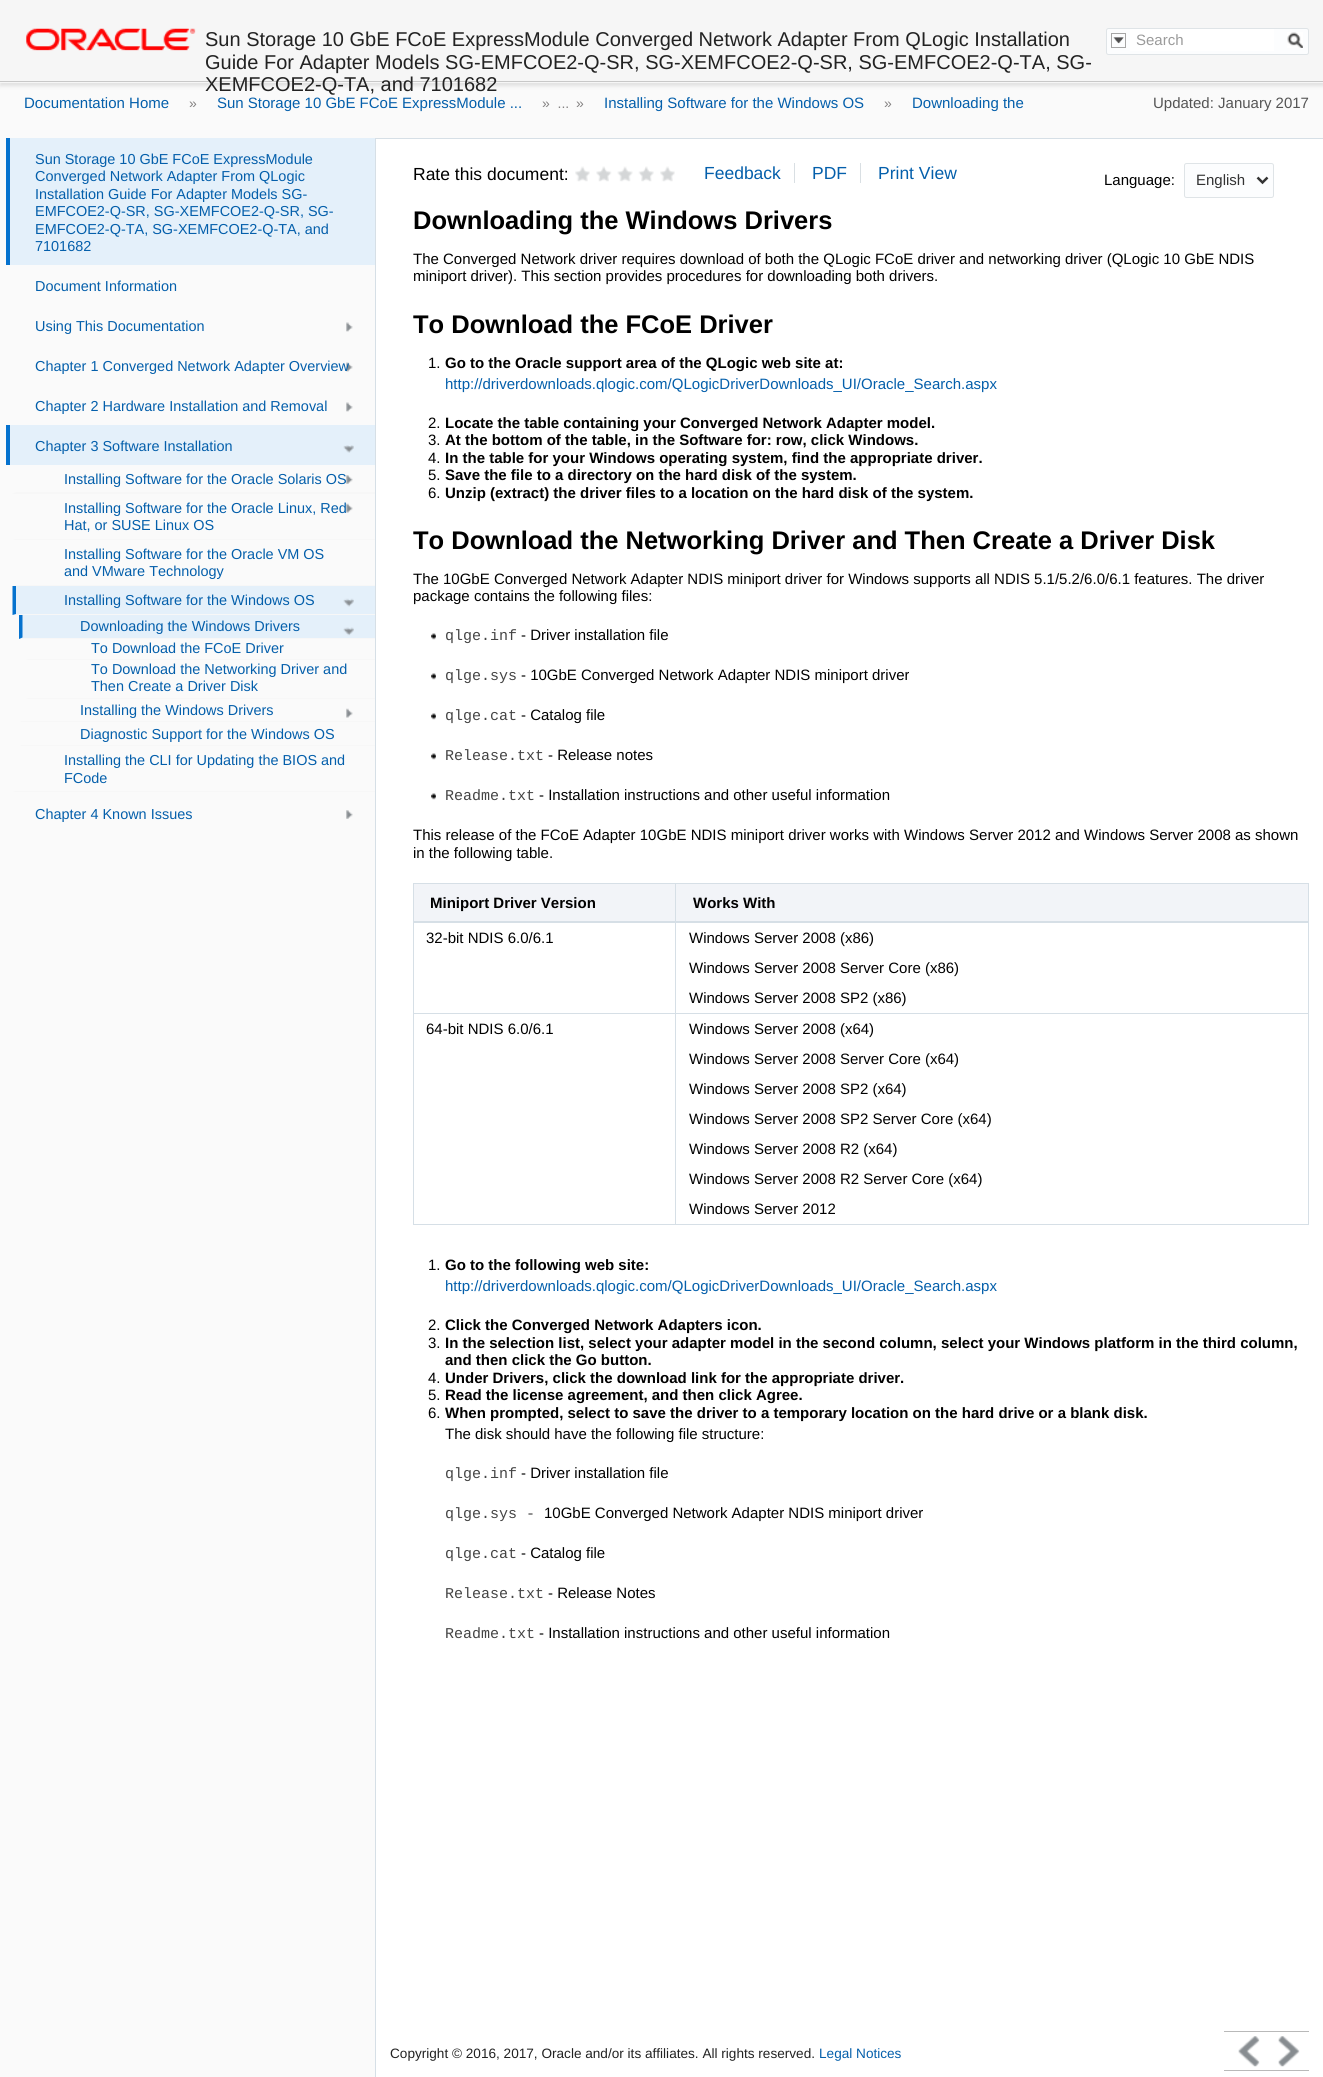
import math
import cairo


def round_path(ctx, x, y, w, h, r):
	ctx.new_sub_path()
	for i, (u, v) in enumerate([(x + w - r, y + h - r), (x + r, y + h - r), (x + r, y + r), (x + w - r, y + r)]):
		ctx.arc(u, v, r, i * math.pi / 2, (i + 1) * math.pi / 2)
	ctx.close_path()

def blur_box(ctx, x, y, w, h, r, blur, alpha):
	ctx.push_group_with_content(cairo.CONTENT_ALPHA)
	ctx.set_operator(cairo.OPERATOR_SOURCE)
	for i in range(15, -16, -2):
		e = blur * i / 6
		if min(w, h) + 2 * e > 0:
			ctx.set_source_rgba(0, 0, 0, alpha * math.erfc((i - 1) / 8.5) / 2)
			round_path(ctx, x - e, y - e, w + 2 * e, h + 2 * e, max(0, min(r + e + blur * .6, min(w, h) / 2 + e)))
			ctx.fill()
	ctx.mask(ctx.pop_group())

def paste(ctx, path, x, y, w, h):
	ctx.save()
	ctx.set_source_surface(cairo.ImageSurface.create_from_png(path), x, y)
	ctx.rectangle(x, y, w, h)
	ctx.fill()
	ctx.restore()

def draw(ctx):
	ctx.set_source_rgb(1, 1, 1)
	ctx.paint()
	ctx.set_source_rgb(0.98, 0.98, 0.98)
	ctx.rectangle(0, 83, 1323, 55)
	ctx.fill()
	ctx.set_source_rgb(0, 0, 0)
	blur_box(ctx, 0, 4, 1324, 82, 0, 2, 0.1)
	ctx.set_source_rgb(0.961, 0.961, 0.961)
	ctx.rectangle(0, 0, 1323, 83)
	ctx.fill()
	ctx.set_source_rgb(0.784, 0.784, 0.784)
	ctx.rectangle(0, 81, 1323, 1)
	ctx.fill()
	paste(ctx, 'media/1.png', 26, 28, 170, 23)
	ctx.select_font_face('Liberation Sans')
	ctx.set_font_size(20)
	ctx.set_source_rgb(0.133, 0.133, 0.133)
	for x, y, s in [
		(205, 46, 'Sun Storage 10 GbE FCoE ExpressModule Converged Network Adapter From QLogic Installation'),
		(205, 69, 'Guide For Adapter Models SG-EMFCOE2-Q-SR, SG-XEMFCOE2-Q-SR, SG-EMFCOE2-Q-TA, SG-'),
		(205, 91, 'XEMFCOE2-Q-TA, and 7101682'),
	]:
		ctx.move_to(x, y)
		ctx.show_text(s)
	ctx.set_source_rgb(0.988, 0.992, 0.996)
	round_path(ctx, 1106.5, 28.5, 202, 26, 2)
	ctx.fill_preserve()
	ctx.set_source_rgb(0.875, 0.894, 0.906)
	ctx.set_line_width(1)
	ctx.stroke()
	paste(ctx, 'media/2.png', 1113, 37, 11, 7)
	ctx.rectangle(1111.5, 33.5, 14, 14)
	ctx.set_source_rgb(0.651, 0.651, 0.651)
	ctx.stroke()
	ctx.set_source_rgb(1, 1, 1)
	ctx.rectangle(1130, 29, 144, 22)
	ctx.fill()
	ctx.set_font_size(15)
	ctx.set_source_rgb(0.604, 0.604, 0.604)
	ctx.move_to(1136, 45)
	ctx.show_text('Search')
	paste(ctx, 'media/3.png', 1287, 32, 16, 16)
	ctx.set_source_rgb(0.839, 0.875, 0.902)
	ctx.rectangle(376, 138, 947, 1)
	ctx.fill()
	ctx.set_source_rgb(0.016, 0.373, 0.671)
	ctx.move_to(24, 108)
	ctx.show_text('Documentation Home')
	ctx.set_font_size(14)
	ctx.set_source_rgb(0.518, 0.51, 0.51)
	ctx.move_to(189, 108)
	ctx.show_text('»')
	ctx.set_font_size(15)
	ctx.set_source_rgb(0.016, 0.373, 0.671)
	ctx.move_to(217, 108)
	ctx.show_text('Sun Storage 10 GbE FCoE ExpressModule ...')
	ctx.set_font_size(14)
	ctx.set_source_rgb(0.518, 0.51, 0.51)
	ctx.move_to(542, 108)
	ctx.show_text('»  ...')
	ctx.move_to(576, 108)
	ctx.show_text('»')
	ctx.set_font_size(15)
	ctx.set_source_rgb(0.016, 0.373, 0.671)
	ctx.move_to(604, 108)
	ctx.show_text('Installing Software for the Windows OS')
	ctx.set_font_size(14)
	ctx.set_source_rgb(0.518, 0.51, 0.51)
	ctx.move_to(884, 108)
	ctx.show_text('»')
	ctx.set_font_size(15)
	ctx.set_source_rgb(0.016, 0.373, 0.671)
	ctx.move_to(912, 108)
	ctx.show_text('Downloading the')
	ctx.set_source_rgb(0.333, 0.333, 0.333)
	ctx.move_to(1153, 108)
	ctx.show_text('Updated: January 2017')
	ctx.set_source_rgb(0.98, 0.98, 0.98)
	ctx.rectangle(0, 138, 375, 1939)
	ctx.fill()
	ctx.set_source_rgb(0.839, 0.875, 0.902)
	ctx.rectangle(375, 138, 1, 1939)
	ctx.fill()
	ctx.set_source_rgb(0.894, 0.941, 0.98)
	ctx.rectangle(10, 138, 365, 127)
	ctx.fill()
	ctx.set_source_rgb(0.02, 0.447, 0.808)
	ctx.rectangle(6, 138, 4, 127)
	ctx.fill()
	ctx.set_font_size(14.45)
	ctx.set_source_rgb(0.016, 0.373, 0.671)
	for x, y, s in [
		(35, 164, 'Sun Storage 10 GbE FCoE ExpressModule'),
		(35, 181, 'Converged Network Adapter From QLogic'),
		(35, 199, 'Installation Guide For Adapter Models SG-'),
		(35, 216, 'EMFCOE2-Q-SR, SG-XEMFCOE2-Q-SR, SG-'),
		(35, 234, 'EMFCOE2-Q-TA, SG-XEMFCOE2-Q-TA, and'),
		(35, 251, '7101682'),
		(35, 291, 'Document Information'),
	]:
		ctx.move_to(x, y)
		ctx.show_text(s)
	paste(ctx, 'media/4.png', 346, 322, 7, 10)
	ctx.move_to(35, 331)
	ctx.show_text('Using This Documentation')
	paste(ctx, 'media/4.png', 346, 362, 7, 10)
	ctx.move_to(35, 371)
	ctx.show_text('Chapter 1 Converged Network Adapter Overview')
	paste(ctx, 'media/4.png', 346, 402, 7, 10)
	ctx.move_to(35, 411)
	ctx.show_text('Chapter 2 Hardware Installation and Removal')
	ctx.set_source_rgb(0.894, 0.941, 0.98)
	ctx.rectangle(10, 425, 365, 40)
	ctx.fill()
	paste(ctx, 'media/5.png', 343, 445, 11, 8)
	ctx.set_source_rgb(0.02, 0.447, 0.808)
	ctx.rectangle(6, 425, 4, 40)
	ctx.fill()
	ctx.set_source_rgb(0.016, 0.373, 0.671)
	ctx.move_to(35, 451)
	ctx.show_text('Chapter 3 Software Installation')
	paste(ctx, 'media/6.png', 346, 475, 7, 9)
	ctx.set_source_rgb(0.965, 0.965, 0.965)
	ctx.new_path()
	ctx.move_to(375, 494)
	ctx.line_to(12, 494)
	ctx.line_to(16, 492)
	ctx.line_to(375, 492)
	ctx.close_path()
	ctx.fill()
	ctx.set_source_rgb(0.016, 0.373, 0.671)
	ctx.move_to(64, 484)
	ctx.show_text('Installing Software for the Oracle Solaris OS')
	paste(ctx, 'media/7.png', 346, 503, 7, 10)
	ctx.set_source_rgb(0.965, 0.965, 0.965)
	ctx.new_path()
	ctx.move_to(375, 540)
	ctx.line_to(12, 540)
	ctx.line_to(16, 539)
	ctx.line_to(375, 539)
	ctx.close_path()
	ctx.fill()
	ctx.set_source_rgb(0.016, 0.373, 0.671)
	ctx.move_to(64, 513)
	ctx.show_text('Installing Software for the Oracle Linux, Red')
	ctx.move_to(64, 530)
	ctx.show_text('Hat, or SUSE Linux OS')
	ctx.set_source_rgb(0.965, 0.965, 0.965)
	ctx.new_path()
	ctx.move_to(375, 586)
	ctx.line_to(12, 586)
	ctx.line_to(16, 585)
	ctx.line_to(375, 585)
	ctx.close_path()
	ctx.fill()
	ctx.set_source_rgb(0.016, 0.373, 0.671)
	ctx.move_to(64, 559)
	ctx.show_text('Installing Software for the Oracle VM OS')
	ctx.move_to(64, 576)
	ctx.show_text('and VMware Technology')
	ctx.set_source_rgb(0.894, 0.941, 0.98)
	ctx.rectangle(13, 586, 362, 29)
	ctx.fill()
	paste(ctx, 'media/8.png', 343, 598, 11, 9)
	ctx.set_source_rgb(0.965, 0.965, 0.965)
	ctx.new_path()
	ctx.move_to(375, 615)
	ctx.line_to(12, 615)
	ctx.line_to(16, 614)
	ctx.line_to(375, 614)
	ctx.close_path()
	ctx.fill()
	ctx.set_source_rgb(0.02, 0.447, 0.808)
	ctx.new_path()
	ctx.move_to(12.5, 615)
	ctx.line_to(12.5, 586)
	ctx.line_to(16, 586)
	ctx.line_to(16, 614)
	ctx.close_path()
	ctx.fill()
	ctx.set_source_rgb(0.016, 0.373, 0.671)
	ctx.move_to(64, 605)
	ctx.show_text('Installing Software for the Windows OS')
	ctx.set_source_rgb(0.894, 0.941, 0.98)
	ctx.rectangle(19, 615, 356, 24)
	ctx.fill()
	paste(ctx, 'media/9.png', 343, 627, 11, 9)
	ctx.set_source_rgb(0.965, 0.965, 0.965)
	ctx.new_path()
	ctx.move_to(375, 639)
	ctx.line_to(19, 639)
	ctx.line_to(22, 638)
	ctx.line_to(375, 638)
	ctx.close_path()
	ctx.fill()
	ctx.set_source_rgb(0.02, 0.447, 0.808)
	ctx.new_path()
	ctx.move_to(19, 639)
	ctx.line_to(19, 615)
	ctx.line_to(22.5, 615)
	ctx.line_to(22.5, 637.5)
	ctx.close_path()
	ctx.fill()
	ctx.set_source_rgb(0.016, 0.373, 0.671)
	ctx.move_to(80, 631)
	ctx.show_text('Downloading the Windows Drivers')
	ctx.set_source_rgb(0.965, 0.965, 0.965)
	ctx.new_path()
	ctx.move_to(375, 660)
	ctx.line_to(25, 660)
	ctx.line_to(29, 659)
	ctx.line_to(375, 659)
	ctx.close_path()
	ctx.fill()
	ctx.set_source_rgb(0.016, 0.373, 0.671)
	ctx.move_to(91, 653)
	ctx.show_text('To Download the FCoE Driver')
	ctx.set_source_rgb(0.965, 0.965, 0.965)
	ctx.new_path()
	ctx.move_to(375, 699)
	ctx.line_to(25, 699)
	ctx.line_to(29, 698)
	ctx.line_to(375, 698)
	ctx.close_path()
	ctx.fill()
	ctx.set_source_rgb(0.016, 0.373, 0.671)
	ctx.move_to(91, 674)
	ctx.show_text('To Download the Networking Driver and')
	ctx.move_to(91, 691)
	ctx.show_text('Then Create a Driver Disk')
	paste(ctx, 'media/7.png', 346, 708, 7, 10)
	ctx.set_source_rgb(0.965, 0.965, 0.965)
	ctx.new_path()
	ctx.move_to(375, 722)
	ctx.line_to(19, 722)
	ctx.line_to(22, 721)
	ctx.line_to(375, 721)
	ctx.close_path()
	ctx.fill()
	ctx.set_source_rgb(0.016, 0.373, 0.671)
	ctx.move_to(80, 715)
	ctx.show_text('Installing the Windows Drivers')
	ctx.set_source_rgb(0.965, 0.965, 0.965)
	ctx.new_path()
	ctx.move_to(375, 746)
	ctx.line_to(19, 746)
	ctx.line_to(22, 745)
	ctx.line_to(375, 745)
	ctx.close_path()
	ctx.fill()
	ctx.set_source_rgb(0.016, 0.373, 0.671)
	ctx.move_to(80, 739)
	ctx.show_text('Diagnostic Support for the Windows OS')
	ctx.set_source_rgb(0.965, 0.965, 0.965)
	ctx.new_path()
	ctx.move_to(375, 792)
	ctx.line_to(12, 792)
	ctx.line_to(16, 791)
	ctx.line_to(375, 791)
	ctx.close_path()
	ctx.fill()
	ctx.set_source_rgb(0.016, 0.373, 0.671)
	ctx.move_to(64, 765)
	ctx.show_text('Installing the CLI for Updating the BIOS and')
	ctx.move_to(64, 783)
	ctx.show_text('FCode')
	paste(ctx, 'media/6.png', 346, 810, 7, 9)
	ctx.move_to(35, 819)
	ctx.show_text('Chapter 4 Known Issues')
	ctx.set_font_size(17.5)
	ctx.set_source_rgb(0, 0, 0)
	ctx.move_to(413, 180)
	ctx.show_text('Rate this document:')
	paste(ctx, 'media/10.png', 575, 166, 15, 16)
	paste(ctx, 'media/11.png', 596, 166, 16, 16)
	paste(ctx, 'media/12.png', 617, 166, 16, 16)
	paste(ctx, 'media/13.png', 638, 166, 16, 16)
	paste(ctx, 'media/10.png', 660, 166, 15, 16)
	ctx.set_source_rgb(0.851, 0.875, 0.89)
	ctx.rectangle(794, 163, 1, 20)
	ctx.fill()
	ctx.set_source_rgb(0.016, 0.373, 0.671)
	ctx.move_to(704, 179)
	ctx.show_text('Feedback')
	ctx.set_source_rgb(0.851, 0.875, 0.89)
	ctx.rectangle(860, 163, 1, 20)
	ctx.fill()
	ctx.set_source_rgb(0.016, 0.373, 0.671)
	ctx.move_to(812, 179)
	ctx.show_text('PDF')
	ctx.move_to(878, 179)
	ctx.show_text('Print View')
	ctx.set_font_size(15)
	ctx.set_source_rgb(0, 0, 0)
	ctx.move_to(1104, 185)
	ctx.show_text('Language:')
	ctx.set_source_rgb(0.988, 0.992, 0.996)
	round_path(ctx, 1184.5, 163.5, 89, 34, 2)
	ctx.fill_preserve()
	ctx.set_source_rgb(0.875, 0.894, 0.906)
	ctx.stroke()
	ctx.new_path()
	ctx.move_to(1257.5, 177.5)
	ctx.line_to(1262.5, 182.5)
	ctx.line_to(1267.5, 177.5)
	ctx.set_source_rgb(0.2, 0.2, 0.2)
	ctx.set_line_width(2.5)
	ctx.stroke()
	ctx.move_to(1196, 185)
	ctx.show_text('English')
	ctx.select_font_face('Liberation Sans', cairo.FONT_SLANT_NORMAL, cairo.FONT_WEIGHT_BOLD)
	ctx.set_font_size(25.5)
	ctx.set_source_rgb(0, 0, 0)
	ctx.move_to(413, 229)
	ctx.show_text('Downloading the Windows Drivers')
	ctx.select_font_face('Liberation Sans')
	ctx.set_font_size(15)
	ctx.move_to(413, 264)
	ctx.show_text('The Converged Network driver requires download of both the QLogic FCoE driver and networking driver (QLogic 10 GbE NDIS')
	ctx.move_to(413, 281)
	ctx.show_text('miniport driver). This section provides procedures for downloading both drivers.')
	ctx.save()
	ctx.rectangle(413, 206, 896, 1822)
	ctx.clip()
	ctx.select_font_face('Liberation Sans', cairo.FONT_SLANT_NORMAL, cairo.FONT_WEIGHT_BOLD)
	ctx.set_font_size(25.5)
	ctx.move_to(413, 333)
	ctx.show_text('To Download the FCoE Driver')
	ctx.restore()
	ctx.move_to(428, 368)
	ctx.show_text('1.')
	ctx.select_font_face('Liberation Sans', cairo.FONT_SLANT_NORMAL, cairo.FONT_WEIGHT_BOLD)
	ctx.move_to(445, 368)
	ctx.show_text('Go to the Oracle support area of the QLogic web site at:')
	ctx.select_font_face('Liberation Sans')
	ctx.set_source_rgb(0.016, 0.373, 0.671)
	ctx.move_to(445, 389)
	ctx.show_text('http://driverdownloads.qlogic.com/QLogicDriverDownloads_UI/Oracle_Search.aspx')
	ctx.set_source_rgb(0, 0, 0)
	ctx.move_to(428, 428)
	ctx.show_text('2.')
	ctx.select_font_face('Liberation Sans', cairo.FONT_SLANT_NORMAL, cairo.FONT_WEIGHT_BOLD)
	ctx.move_to(445, 428)
	ctx.show_text('Locate the table containing your Converged Network Adapter model.')
	ctx.select_font_face('Liberation Sans')
	ctx.move_to(428, 445)
	ctx.show_text('3.')
	ctx.select_font_face('Liberation Sans', cairo.FONT_SLANT_NORMAL, cairo.FONT_WEIGHT_BOLD)
	ctx.move_to(445, 445)
	ctx.show_text('At the bottom of the table, in the Software for: row, click Windows.')
	ctx.select_font_face('Liberation Sans')
	ctx.move_to(428, 463)
	ctx.show_text('4.')
	ctx.select_font_face('Liberation Sans', cairo.FONT_SLANT_NORMAL, cairo.FONT_WEIGHT_BOLD)
	ctx.move_to(445, 463)
	ctx.show_text('In the table for your Windows operating system, find the appropriate driver.')
	ctx.select_font_face('Liberation Sans')
	ctx.move_to(428, 480)
	ctx.show_text('5.')
	ctx.select_font_face('Liberation Sans', cairo.FONT_SLANT_NORMAL, cairo.FONT_WEIGHT_BOLD)
	ctx.move_to(445, 480)
	ctx.show_text('Save the file to a directory on the hard disk of the system.')
	ctx.select_font_face('Liberation Sans')
	ctx.move_to(428, 498)
	ctx.show_text('6.')
	ctx.select_font_face('Liberation Sans', cairo.FONT_SLANT_NORMAL, cairo.FONT_WEIGHT_BOLD)
	ctx.move_to(445, 498)
	ctx.show_text('Unzip (extract) the driver files to a location on the hard disk of the system.')
	ctx.save()
	ctx.rectangle(413, 206, 896, 1822)
	ctx.clip()
	ctx.set_font_size(25.5)
	ctx.move_to(413, 549)
	ctx.show_text('To Download the Networking Driver and Then Create a Driver Disk')
	ctx.restore()
	ctx.select_font_face('Liberation Sans')
	ctx.move_to(413, 584)
	ctx.show_text('The 10GbE Converged Network Adapter NDIS miniport driver for Windows supports all NDIS 5.1/5.2/6.0/6.1 features. The driver')
	ctx.move_to(413, 601)
	ctx.show_text('package contains the following files:')
	paste(ctx, 'media/14.png', 431, 633, 5, 7)
	ctx.select_font_face('Liberation Mono')
	ctx.set_source_rgb(0.267, 0.267, 0.267)
	ctx.move_to(445, 640)
	ctx.show_text('qlge.inf')
	ctx.select_font_face('Liberation Sans')
	ctx.set_source_rgb(0, 0, 0)
	ctx.move_to(521, 640)
	ctx.show_text('- Driver installation file')
	paste(ctx, 'media/14.png', 431, 673, 5, 7)
	ctx.select_font_face('Liberation Mono')
	ctx.set_source_rgb(0.267, 0.267, 0.267)
	ctx.move_to(445, 680)
	ctx.show_text('qlge.sys')
	ctx.select_font_face('Liberation Sans')
	ctx.set_source_rgb(0, 0, 0)
	ctx.move_to(521, 680)
	ctx.show_text('- 10GbE Converged Network Adapter NDIS miniport driver')
	paste(ctx, 'media/14.png', 431, 713, 5, 7)
	ctx.select_font_face('Liberation Mono')
	ctx.set_source_rgb(0.267, 0.267, 0.267)
	ctx.move_to(445, 720)
	ctx.show_text('qlge.cat')
	ctx.select_font_face('Liberation Sans')
	ctx.set_source_rgb(0, 0, 0)
	ctx.move_to(521, 720)
	ctx.show_text('- Catalog file')
	paste(ctx, 'media/14.png', 431, 753, 5, 7)
	ctx.select_font_face('Liberation Mono')
	ctx.set_source_rgb(0.267, 0.267, 0.267)
	ctx.move_to(445, 760)
	ctx.show_text('Release.txt')
	ctx.select_font_face('Liberation Sans')
	ctx.set_source_rgb(0, 0, 0)
	ctx.move_to(548, 760)
	ctx.show_text('- Release notes')
	paste(ctx, 'media/14.png', 431, 793, 5, 7)
	ctx.select_font_face('Liberation Mono')
	ctx.set_source_rgb(0.267, 0.267, 0.267)
	ctx.move_to(445, 800)
	ctx.show_text('Readme.txt')
	ctx.select_font_face('Liberation Sans')
	ctx.set_source_rgb(0, 0, 0)
	for x, y, s in [
		(539, 800, '- Installation instructions and other useful information'),
		(413, 840, 'This release of the FCoE Adapter 10GbE NDIS miniport driver works with Windows Server 2012 and Windows Server 2008 as shown'),
		(413, 858, 'in the following table.'),
	]:
		ctx.move_to(x, y)
		ctx.show_text(s)
	ctx.set_source_rgb(0.839, 0.875, 0.902)
	ctx.rectangle(413, 883, 896, 342)
	ctx.fill()
	ctx.set_source_rgb(0.949, 0.957, 0.969)
	ctx.rectangle(414, 884, 261, 37)
	ctx.fill()
	ctx.select_font_face('Liberation Sans', cairo.FONT_SLANT_NORMAL, cairo.FONT_WEIGHT_BOLD)
	ctx.set_source_rgb(0, 0, 0)
	ctx.move_to(430, 908)
	ctx.show_text('Miniport Driver Version')
	ctx.set_source_rgb(0.949, 0.957, 0.969)
	ctx.rectangle(676, 884, 632, 37)
	ctx.fill()
	ctx.set_source_rgb(0, 0, 0)
	ctx.move_to(693, 908)
	ctx.show_text('Works With')
	ctx.set_source_rgb(1, 1, 1)
	ctx.rectangle(414, 923, 261, 90)
	ctx.fill()
	ctx.select_font_face('Liberation Sans')
	ctx.set_source_rgb(0, 0, 0)
	ctx.move_to(426, 943)
	ctx.show_text('32-bit NDIS 6.0/6.1')
	ctx.set_source_rgb(1, 1, 1)
	ctx.rectangle(676, 923, 632, 90)
	ctx.fill()
	ctx.set_source_rgb(0, 0, 0)
	for x, y, s in [
		(689, 943, 'Windows Server 2008 (x86)'),
		(689, 973, 'Windows Server 2008 Server Core (x86)'),
		(689, 1003, 'Windows Server 2008 SP2 (x86)'),
	]:
		ctx.move_to(x, y)
		ctx.show_text(s)
	ctx.set_source_rgb(1, 1, 1)
	ctx.rectangle(414, 1014, 261, 210)
	ctx.fill()
	ctx.set_source_rgb(0, 0, 0)
	ctx.move_to(426, 1034)
	ctx.show_text('64-bit NDIS 6.0/6.1')
	ctx.set_source_rgb(1, 1, 1)
	ctx.rectangle(676, 1014, 632, 210)
	ctx.fill()
	ctx.set_source_rgb(0, 0, 0)
	for x, y, s in [
		(689, 1034, 'Windows Server 2008 (x64)'),
		(689, 1064, 'Windows Server 2008 Server Core (x64)'),
		(689, 1094, 'Windows Server 2008 SP2 (x64)'),
		(689, 1124, 'Windows Server 2008 SP2 Server Core (x64)'),
		(689, 1154, 'Windows Server 2008 R2 (x64)'),
		(689, 1184, 'Windows Server 2008 R2 Server Core (x64)'),
		(689, 1214, 'Windows Server 2012'),
		(428, 1270, '1.'),
	]:
		ctx.move_to(x, y)
		ctx.show_text(s)
	ctx.select_font_face('Liberation Sans', cairo.FONT_SLANT_NORMAL, cairo.FONT_WEIGHT_BOLD)
	ctx.move_to(445, 1270)
	ctx.show_text('Go to the following web site:')
	ctx.select_font_face('Liberation Sans')
	ctx.set_source_rgb(0.016, 0.373, 0.671)
	ctx.move_to(445, 1291)
	ctx.show_text('http://driverdownloads.qlogic.com/QLogicDriverDownloads_UI/Oracle_Search.aspx')
	ctx.set_source_rgb(0, 0, 0)
	ctx.move_to(428, 1330)
	ctx.show_text('2.')
	ctx.select_font_face('Liberation Sans', cairo.FONT_SLANT_NORMAL, cairo.FONT_WEIGHT_BOLD)
	ctx.move_to(445, 1330)
	ctx.show_text('Click the Converged Network Adapters icon.')
	ctx.select_font_face('Liberation Sans')
	ctx.move_to(428, 1348)
	ctx.show_text('3.')
	ctx.select_font_face('Liberation Sans', cairo.FONT_SLANT_NORMAL, cairo.FONT_WEIGHT_BOLD)
	ctx.move_to(445, 1348)
	ctx.show_text('In the selection list, select your adapter model in the second column, select your Windows platform in the third column,')
	ctx.move_to(445, 1365)
	ctx.show_text('and then click the Go button.')
	ctx.select_font_face('Liberation Sans')
	ctx.move_to(428, 1383)
	ctx.show_text('4.')
	ctx.select_font_face('Liberation Sans', cairo.FONT_SLANT_NORMAL, cairo.FONT_WEIGHT_BOLD)
	ctx.move_to(445, 1383)
	ctx.show_text('Under Drivers, click the download link for the appropriate driver.')
	ctx.select_font_face('Liberation Sans')
	ctx.move_to(428, 1400)
	ctx.show_text('5.')
	ctx.select_font_face('Liberation Sans', cairo.FONT_SLANT_NORMAL, cairo.FONT_WEIGHT_BOLD)
	ctx.move_to(445, 1400)
	ctx.show_text('Read the license agreement, and then click Agree.')
	ctx.select_font_face('Liberation Sans')
	ctx.move_to(428, 1418)
	ctx.show_text('6.')
	ctx.select_font_face('Liberation Sans', cairo.FONT_SLANT_NORMAL, cairo.FONT_WEIGHT_BOLD)
	ctx.move_to(445, 1418)
	ctx.show_text('When prompted, select to save the driver to a temporary location on the hard drive or a blank disk.')
	ctx.select_font_face('Liberation Sans')
	ctx.move_to(445, 1439)
	ctx.show_text('The disk should have the following file structure:')
	ctx.select_font_face('Liberation Mono')
	ctx.set_source_rgb(0.267, 0.267, 0.267)
	ctx.move_to(445, 1478)
	ctx.show_text('qlge.inf')
	ctx.select_font_face('Liberation Sans')
	ctx.set_source_rgb(0, 0, 0)
	ctx.move_to(521, 1478)
	ctx.show_text('- Driver installation file')
	ctx.select_font_face('Liberation Mono')
	ctx.set_source_rgb(0.267, 0.267, 0.267)
	ctx.move_to(445, 1518)
	ctx.show_text('qlge.sys -')
	ctx.select_font_face('Liberation Sans')
	ctx.set_source_rgb(0, 0, 0)
	ctx.move_to(544, 1518)
	ctx.show_text('10GbE Converged Network Adapter NDIS miniport driver')
	ctx.select_font_face('Liberation Mono')
	ctx.set_source_rgb(0.267, 0.267, 0.267)
	ctx.move_to(445, 1558)
	ctx.show_text('qlge.cat')
	ctx.select_font_face('Liberation Sans')
	ctx.set_source_rgb(0, 0, 0)
	ctx.move_to(521, 1558)
	ctx.show_text('- Catalog file')
	ctx.select_font_face('Liberation Mono')
	ctx.set_source_rgb(0.267, 0.267, 0.267)
	ctx.move_to(445, 1598)
	ctx.show_text('Release.txt')
	ctx.select_font_face('Liberation Sans')
	ctx.set_source_rgb(0, 0, 0)
	ctx.move_to(548, 1598)
	ctx.show_text('- Release Notes')
	ctx.select_font_face('Liberation Mono')
	ctx.set_source_rgb(0.267, 0.267, 0.267)
	ctx.move_to(445, 1638)
	ctx.show_text('Readme.txt')
	ctx.select_font_face('Liberation Sans')
	ctx.set_source_rgb(0, 0, 0)
	ctx.move_to(539, 1638)
	ctx.show_text('- Installation instructions and other useful information')
	ctx.set_font_size(13.6)
	ctx.set_source_rgb(0.133, 0.133, 0.133)
	ctx.move_to(390, 2058)
	ctx.show_text('Copyright © 2016, 2017, Oracle and/or its affiliates. All rights reserved.')
	ctx.set_source_rgb(0.016, 0.373, 0.671)
	ctx.move_to(819, 2058)
	ctx.show_text('Legal Notices')
	ctx.set_source_rgb(0.725, 0.725, 0.725)
	ctx.rectangle(1224, 2031, 85, 1)
	ctx.fill()
	ctx.rectangle(1224, 2070, 85, 1)
	ctx.fill()
	paste(ctx, 'media/15.png', 1238, 2036, 22, 31)
	paste(ctx, 'media/16.png', 1278, 2036, 22, 31)


surface = cairo.ImageSurface(cairo.FORMAT_RGB24, 1323, 2077)
ctx = cairo.Context(surface)
options = cairo.FontOptions()
options.set_hint_metrics(cairo.HINT_METRICS_OFF)
options.set_hint_style(cairo.HINT_STYLE_NONE)
ctx.set_font_options(options)
ctx.set_miter_limit(4)
draw(ctx)
surface.write_to_png('image.png')
